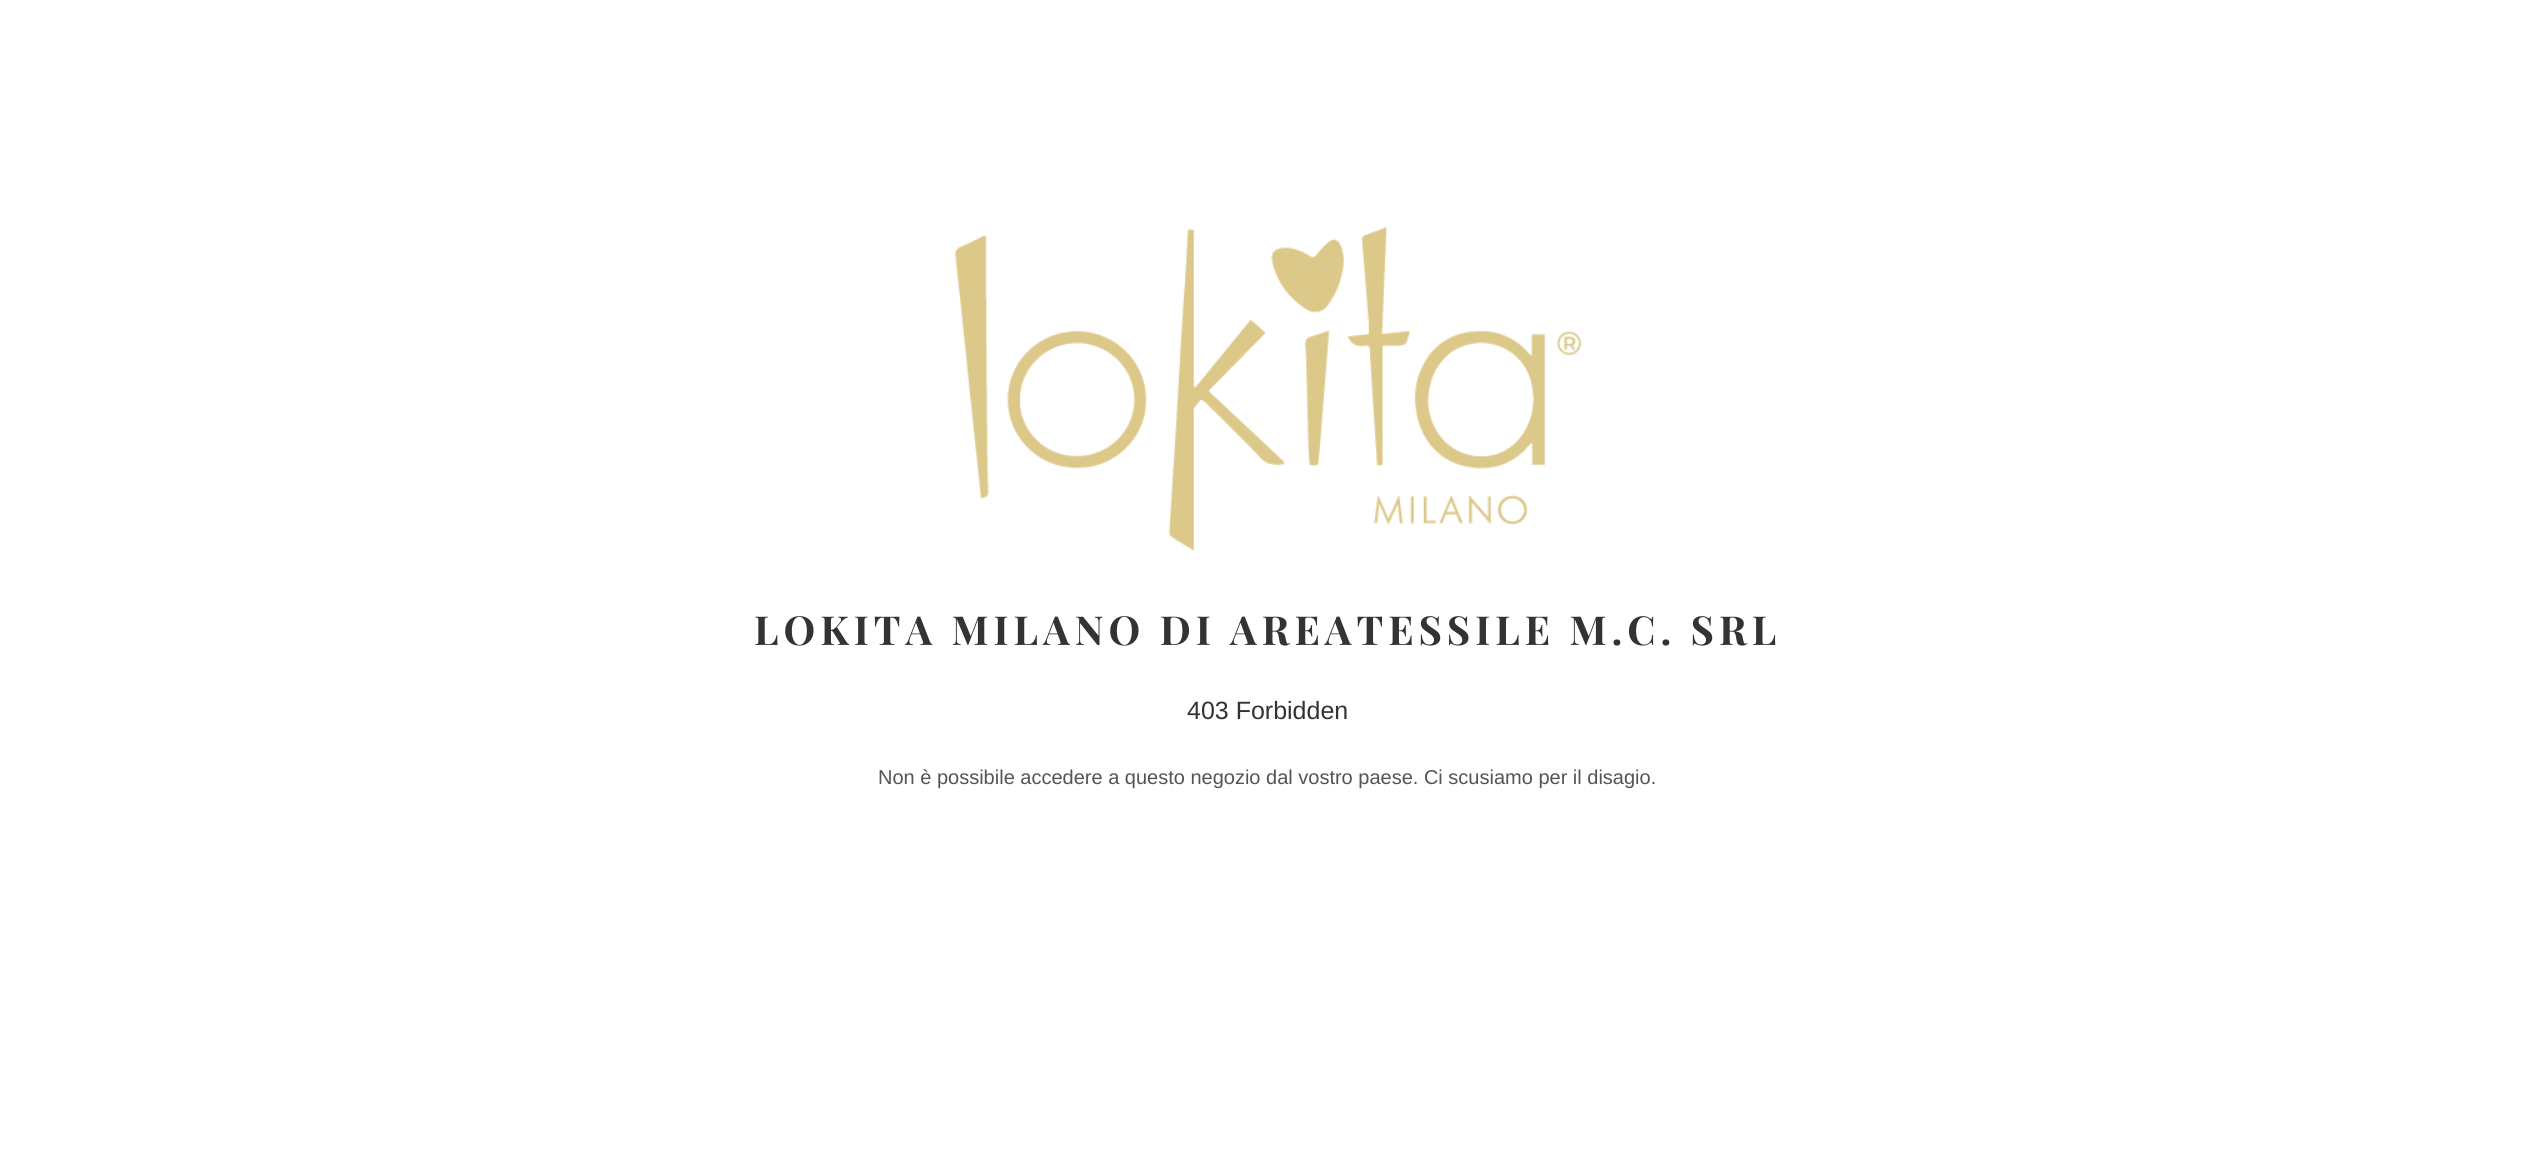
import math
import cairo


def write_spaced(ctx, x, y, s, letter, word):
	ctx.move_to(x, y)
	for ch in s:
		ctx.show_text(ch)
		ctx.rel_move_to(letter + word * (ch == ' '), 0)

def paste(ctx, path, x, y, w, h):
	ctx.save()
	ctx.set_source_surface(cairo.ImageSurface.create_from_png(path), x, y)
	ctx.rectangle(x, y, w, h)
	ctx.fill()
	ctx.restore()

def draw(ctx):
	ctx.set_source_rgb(1, 1, 1)
	ctx.paint()
	paste(ctx, 'media/1.png', 954, 227, 628, 324)
	ctx.select_font_face('Playfair Display', cairo.FONT_SLANT_NORMAL, cairo.FONT_WEIGHT_BOLD)
	ctx.set_font_size(40)
	ctx.set_source_rgb(0.2, 0.2, 0.2)
	write_spaced(ctx, 754, 645, 'LOKITA MILANO DI AREATESSILE M.C. SRL', 5, 0)
	ctx.select_font_face('Liberation Sans')
	ctx.set_font_size(25)
	ctx.move_to(1187, 719)
	ctx.show_text('403 Forbidden')
	ctx.set_font_size(20)
	ctx.set_source_rgb(0.333, 0.329, 0.329)
	ctx.move_to(878, 784)
	ctx.show_text('Non è possibile accedere a questo negozio dal vostro paese. Ci scusiamo per il disagio.')


surface = cairo.ImageSurface(cairo.FORMAT_RGB24, 2534, 1150)
ctx = cairo.Context(surface)
options = cairo.FontOptions()
options.set_hint_metrics(cairo.HINT_METRICS_OFF)
options.set_hint_style(cairo.HINT_STYLE_NONE)
ctx.set_font_options(options)
ctx.set_miter_limit(4)
draw(ctx)
surface.write_to_png('image.png')
